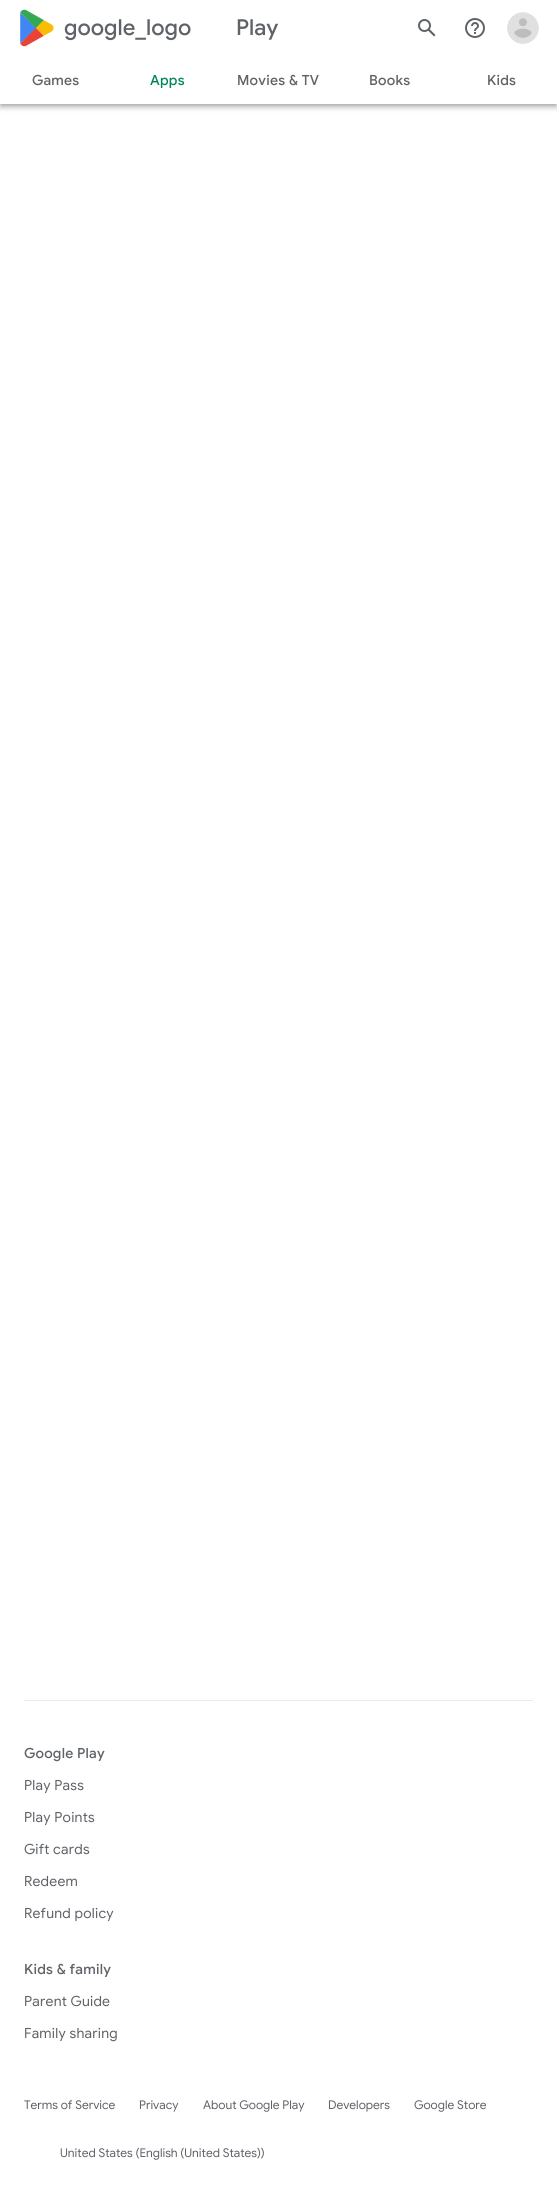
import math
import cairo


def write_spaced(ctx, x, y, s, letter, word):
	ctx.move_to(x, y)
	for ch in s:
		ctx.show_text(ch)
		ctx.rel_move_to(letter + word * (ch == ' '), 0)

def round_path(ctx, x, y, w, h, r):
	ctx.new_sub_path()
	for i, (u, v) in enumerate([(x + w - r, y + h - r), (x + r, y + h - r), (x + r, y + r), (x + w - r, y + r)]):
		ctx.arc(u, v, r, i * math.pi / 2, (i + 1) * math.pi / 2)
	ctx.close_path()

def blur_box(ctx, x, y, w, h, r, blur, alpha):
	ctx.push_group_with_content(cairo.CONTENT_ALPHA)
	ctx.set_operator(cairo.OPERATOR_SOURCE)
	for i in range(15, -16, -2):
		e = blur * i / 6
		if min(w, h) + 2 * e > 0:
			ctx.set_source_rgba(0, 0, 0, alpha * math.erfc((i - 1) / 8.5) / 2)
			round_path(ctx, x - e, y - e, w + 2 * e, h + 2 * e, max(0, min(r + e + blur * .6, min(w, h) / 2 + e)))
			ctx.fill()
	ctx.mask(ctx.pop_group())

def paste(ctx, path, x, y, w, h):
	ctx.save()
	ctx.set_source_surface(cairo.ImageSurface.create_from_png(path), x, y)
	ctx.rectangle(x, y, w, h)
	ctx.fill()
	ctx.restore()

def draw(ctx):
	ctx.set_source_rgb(1, 1, 1)
	ctx.paint()
	ctx.set_source_rgb(0, 0, 0)
	blur_box(ctx, 1, 3, 555, 102, 0, 2, 0.2)
	blur_box(ctx, 0, 1, 557, 104, 0, 5, 0.12)
	blur_box(ctx, 0, 4, 557, 104, 0, 2.5, 0.14)
	ctx.set_source_rgb(1, 1, 1)
	ctx.rectangle(0, 0, 557, 104)
	ctx.fill()
	paste(ctx, 'media/1.png', 20, 9, 34, 38)
	ctx.select_font_face('Google Sans Medium')
	ctx.set_font_size(22)
	ctx.set_source_rgb(0.373, 0.388, 0.408)
	write_spaced(ctx, 64, 35, 'google_logo', 0, 55)
	write_spaced(ctx, 236, 35, 'Play', 0, 55)
	paste(ctx, 'media/2.png', 418, 19, 18, 18)
	paste(ctx, 'media/3.png', 465, 18, 20, 20)
	paste(ctx, 'media/4.png', 507, 12, 32, 32)
	ctx.set_font_size(14)
	write_spaced(ctx, 32, 85, 'Games', 0.25, 0)
	ctx.set_source_rgb(0.004, 0.529, 0.373)
	write_spaced(ctx, 150, 85, 'Apps', 0.25, 0)
	ctx.set_source_rgb(0.373, 0.388, 0.408)
	for x, y, s in [
		(237, 85, 'Movies & TV'),
		(369, 85, 'Books'),
		(487, 85, 'Kids'),
	]:
		write_spaced(ctx, x, y, s, 0.25, 0)
	ctx.set_source_rgb(0.91, 0.918, 0.929)
	ctx.rectangle(24, 1700, 509, 1)
	ctx.fill()
	ctx.set_source_rgb(0.373, 0.388, 0.408)
	write_spaced(ctx, 24, 1758, 'Google Play', 0.25, 0)
	ctx.select_font_face('Google Sans')
	for x, y, s in [
		(24, 1790, 'Play Pass'),
		(24, 1822, 'Play Points'),
		(24, 1854, 'Gift cards'),
		(24, 1886, 'Redeem'),
		(24, 1918, 'Refund policy'),
	]:
		write_spaced(ctx, x, y, s, 0.25, 0)
	ctx.select_font_face('Google Sans Medium')
	write_spaced(ctx, 24, 1974, 'Kids & family', 0.25, 0)
	ctx.select_font_face('Google Sans')
	write_spaced(ctx, 24, 2006, 'Parent Guide', 0.25, 0)
	write_spaced(ctx, 24, 2038, 'Family sharing', 0.25, 0)
	ctx.set_font_size(12)
	for x, y, s in [
		(24, 2109, 'Terms of Service'),
		(139, 2109, 'Privacy'),
		(203, 2109, 'About Google Play'),
		(328, 2109, 'Developers'),
		(414, 2109, 'Google Store'),
		(60, 2157, 'United States (English (United States))'),
	]:
		ctx.move_to(x, y)
		ctx.show_text(s)


surface = cairo.ImageSurface(cairo.FORMAT_RGB24, 557, 2188)
ctx = cairo.Context(surface)
options = cairo.FontOptions()
options.set_hint_metrics(cairo.HINT_METRICS_OFF)
options.set_hint_style(cairo.HINT_STYLE_NONE)
ctx.set_font_options(options)
ctx.set_miter_limit(4)
draw(ctx)
surface.write_to_png('image.png')
